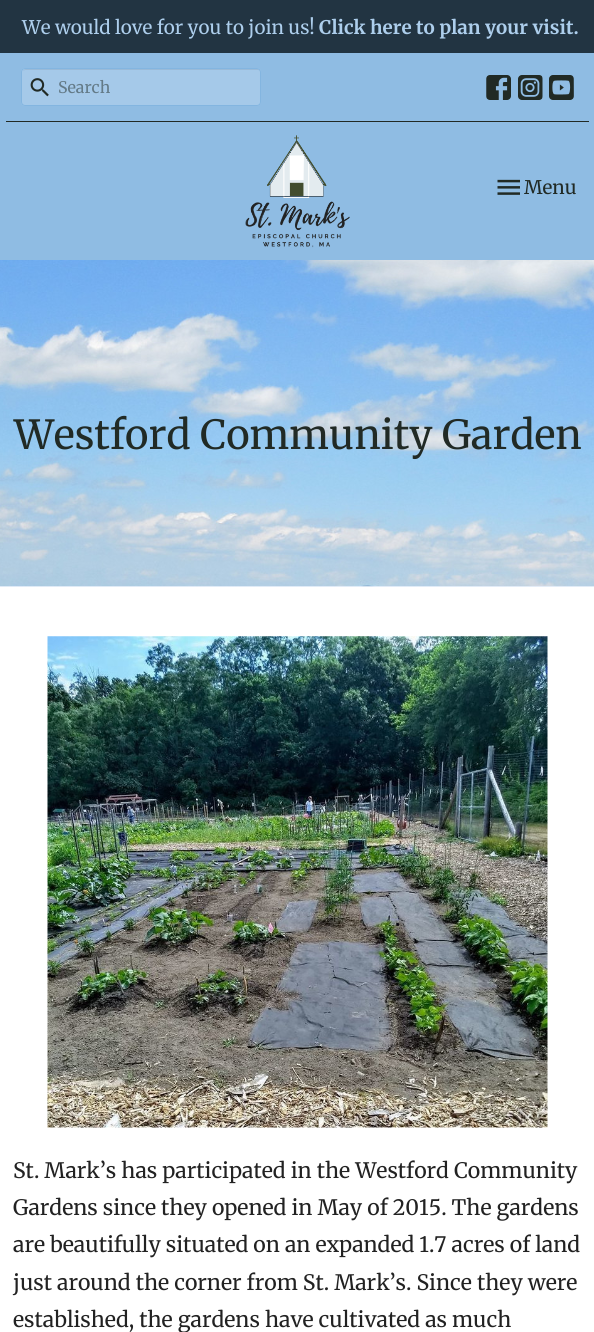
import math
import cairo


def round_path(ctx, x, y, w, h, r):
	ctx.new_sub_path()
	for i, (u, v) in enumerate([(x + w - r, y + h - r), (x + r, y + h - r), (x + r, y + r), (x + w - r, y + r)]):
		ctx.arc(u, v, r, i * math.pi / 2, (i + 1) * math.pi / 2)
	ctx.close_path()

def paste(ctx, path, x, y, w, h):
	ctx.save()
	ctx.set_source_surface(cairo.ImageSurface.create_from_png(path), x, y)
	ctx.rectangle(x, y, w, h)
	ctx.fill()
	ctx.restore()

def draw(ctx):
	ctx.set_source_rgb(1, 1, 1)
	ctx.paint()
	ctx.set_source_rgb(0.133, 0.204, 0.259)
	ctx.rectangle(0, 0, 594, 53)
	ctx.fill()
	ctx.select_font_face('Merriweather')
	ctx.set_font_size(18.75)
	ctx.set_source_rgb(0.678, 0.808, 0.922)
	ctx.move_to(22, 34)
	ctx.show_text('We would love for you to join us!')
	ctx.select_font_face('Merriweather', cairo.FONT_SLANT_NORMAL, cairo.FONT_WEIGHT_BOLD)
	ctx.move_to(319, 34)
	ctx.show_text('Click here to plan your visit.')
	ctx.set_source_rgb(0.561, 0.737, 0.89)
	ctx.rectangle(0, 53, 594, 207)
	ctx.fill()
	ctx.set_source_rgb(0.129, 0.165, 0.145)
	ctx.rectangle(6, 121, 583, 1)
	ctx.fill()
	ctx.set_source_rgb(0.647, 0.788, 0.914)
	round_path(ctx, 21, 68, 240, 38, 4)
	ctx.fill()
	ctx.set_source_rgb(0.6, 0.729, 0.847)
	ctx.new_path()
	ctx.move_to(25, 70)
	ctx.line_to(258, 70)
	ctx.curve_to(259, 70, 260, 71, 260, 72)
	ctx.curve_to(260, 70, 259, 69, 258, 69)
	ctx.line_to(26, 69)
	ctx.curve_to(24, 69, 24, 70, 23, 71)
	ctx.close_path()
	ctx.fill()
	round_path(ctx, 21.5, 68.5, 239, 37, 3.5)
	ctx.set_source_rgb(0.514, 0.71, 0.878)
	ctx.set_line_width(1)
	ctx.stroke()
	paste(ctx, 'media/1.png', 30, 78, 19, 19)
	ctx.select_font_face('Merriweather')
	ctx.set_font_size(16)
	ctx.set_source_rgb(0.388, 0.478, 0.529)
	ctx.move_to(58, 93)
	ctx.show_text('Search')
	paste(ctx, 'media/2.png', 486, 75, 25, 25)
	paste(ctx, 'media/3.png', 518, 75, 25, 25)
	paste(ctx, 'media/4.png', 549, 75, 25, 25)
	paste(ctx, 'media/5.png', 245, 135, 105, 113)
	paste(ctx, 'media/6.png', 497, 179, 23, 16)
	ctx.set_font_size(18.75)
	ctx.set_source_rgb(0.129, 0.165, 0.145)
	ctx.move_to(524, 194)
	ctx.show_text('Menu')
	paste(ctx, 'media/7.png', 0, 260, 594, 327)
	ctx.set_font_size(40)
	ctx.move_to(14, 449)
	ctx.show_text('Westford Community Garden')
	paste(ctx, 'media/8.png', 47, 636, 501, 492)
	ctx.set_font_size(21.25)
	ctx.set_source_rgb(0.133, 0.133, 0.133)
	for x, y, s in [
		(13, 1178, 'St. Mark’s has participated in the Westford Community'),
		(13, 1215, 'Gardens since they opened in May of 2015. The gardens'),
		(13, 1252, 'are beautifully situated on an expanded 1.7 acres of land'),
		(13, 1290, 'just around the corner from St. Mark’s. Since they were'),
		(13, 1327, 'established, the gardens have cultivated as much'),
	]:
		ctx.move_to(x, y)
		ctx.show_text(s)


surface = cairo.ImageSurface(cairo.FORMAT_RGB24, 594, 1332)
ctx = cairo.Context(surface)
options = cairo.FontOptions()
options.set_hint_metrics(cairo.HINT_METRICS_OFF)
options.set_hint_style(cairo.HINT_STYLE_NONE)
ctx.set_font_options(options)
ctx.set_miter_limit(4)
draw(ctx)
surface.write_to_png('image.png')
